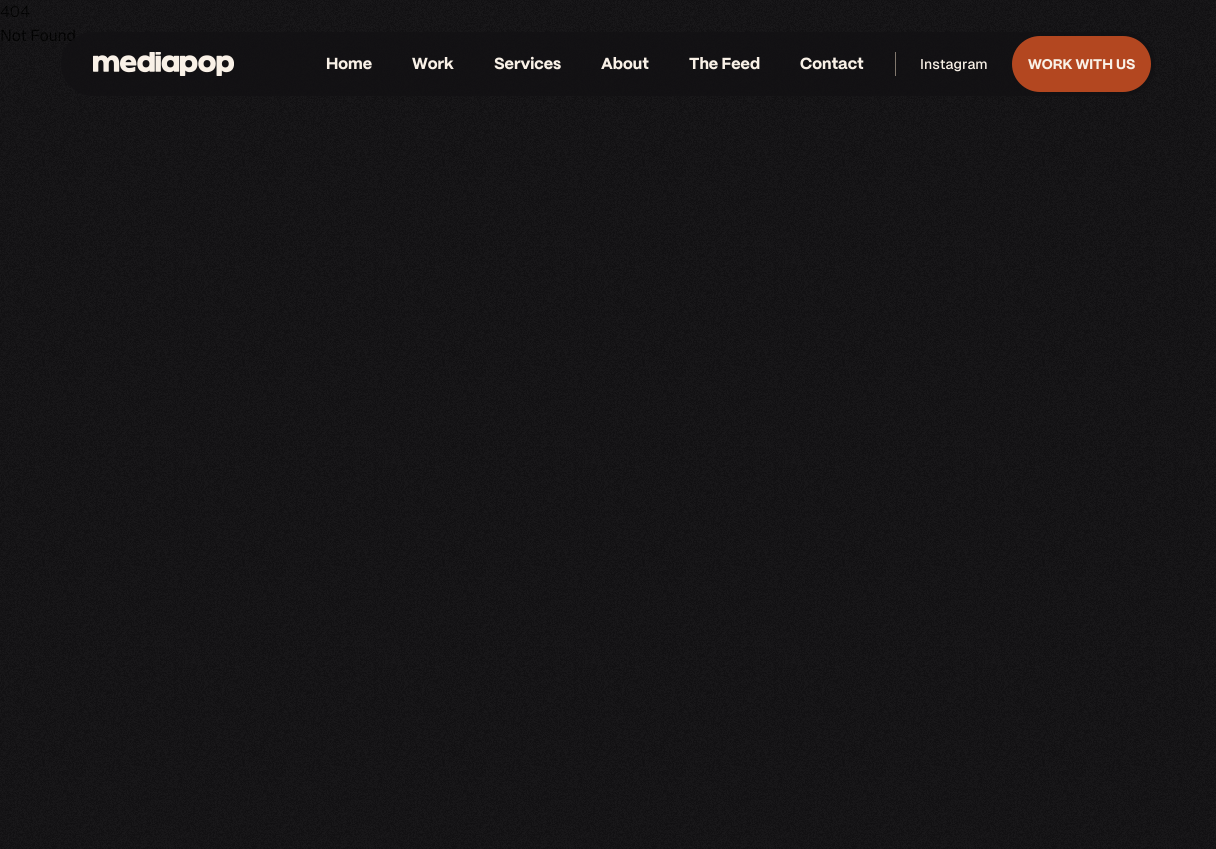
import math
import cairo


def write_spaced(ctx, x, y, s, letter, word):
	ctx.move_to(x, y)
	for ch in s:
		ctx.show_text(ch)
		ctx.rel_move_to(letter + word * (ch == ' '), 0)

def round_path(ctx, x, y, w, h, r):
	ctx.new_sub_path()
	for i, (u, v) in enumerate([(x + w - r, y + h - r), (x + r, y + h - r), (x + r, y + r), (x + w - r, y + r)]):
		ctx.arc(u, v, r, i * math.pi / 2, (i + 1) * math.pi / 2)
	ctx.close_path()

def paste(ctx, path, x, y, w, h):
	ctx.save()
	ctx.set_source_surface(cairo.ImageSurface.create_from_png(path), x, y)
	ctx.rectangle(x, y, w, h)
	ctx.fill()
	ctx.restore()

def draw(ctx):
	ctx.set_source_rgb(0.071, 0.067, 0.075)
	ctx.paint()
	ctx.select_font_face('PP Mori')
	ctx.set_font_size(16)
	ctx.set_source_rgb(0, 0, 0)
	ctx.move_to(0, 17)
	ctx.show_text('404')
	ctx.select_font_face('Geist')
	write_spaced(ctx, 0, 41, 'Not Found', -0.25, 0)
	paste(ctx, 'media/1.png', 0, 0, 1216, 849)
	ctx.set_source_rgba(0.071, 0.067, 0.075, 0.8)
	round_path(ctx, 61, 32, 1094, 64, 32)
	ctx.fill()
	paste(ctx, 'media/2.png', 93, 52, 141, 24)
	ctx.select_font_face('PP Mori ExtraBold')
	ctx.set_source_rgb(0.976, 0.945, 0.906)
	for x, y, s in [
		(326, 69, 'Home'),
		(412, 69, 'Work'),
		(494, 69, 'Services'),
		(601, 69, 'About'),
		(689, 69, 'The Feed'),
		(800, 69, 'Contact'),
	]:
		ctx.move_to(x, y)
		ctx.show_text(s)
	ctx.set_source_rgb(0.506, 0.467, 0.427)
	ctx.rectangle(895, 52, 1, 24)
	ctx.fill()
	ctx.select_font_face('Geist Medium')
	ctx.set_font_size(14)
	ctx.set_source_rgb(0.976, 0.945, 0.906)
	ctx.move_to(920, 69)
	ctx.show_text('Instagram')
	ctx.set_source_rgb(0.702, 0.278, 0.125)
	round_path(ctx, 1012, 36, 139, 56, 28)
	ctx.fill()
	ctx.select_font_face('PP Mori ExtraBold')
	ctx.set_source_rgb(0.976, 0.945, 0.906)
	ctx.move_to(1028, 69)
	ctx.show_text('WORK WITH US')


surface = cairo.ImageSurface(cairo.FORMAT_RGB24, 1216, 849)
ctx = cairo.Context(surface)
options = cairo.FontOptions()
options.set_hint_metrics(cairo.HINT_METRICS_OFF)
options.set_hint_style(cairo.HINT_STYLE_NONE)
ctx.set_font_options(options)
ctx.set_miter_limit(4)
draw(ctx)
surface.write_to_png('image.png')
